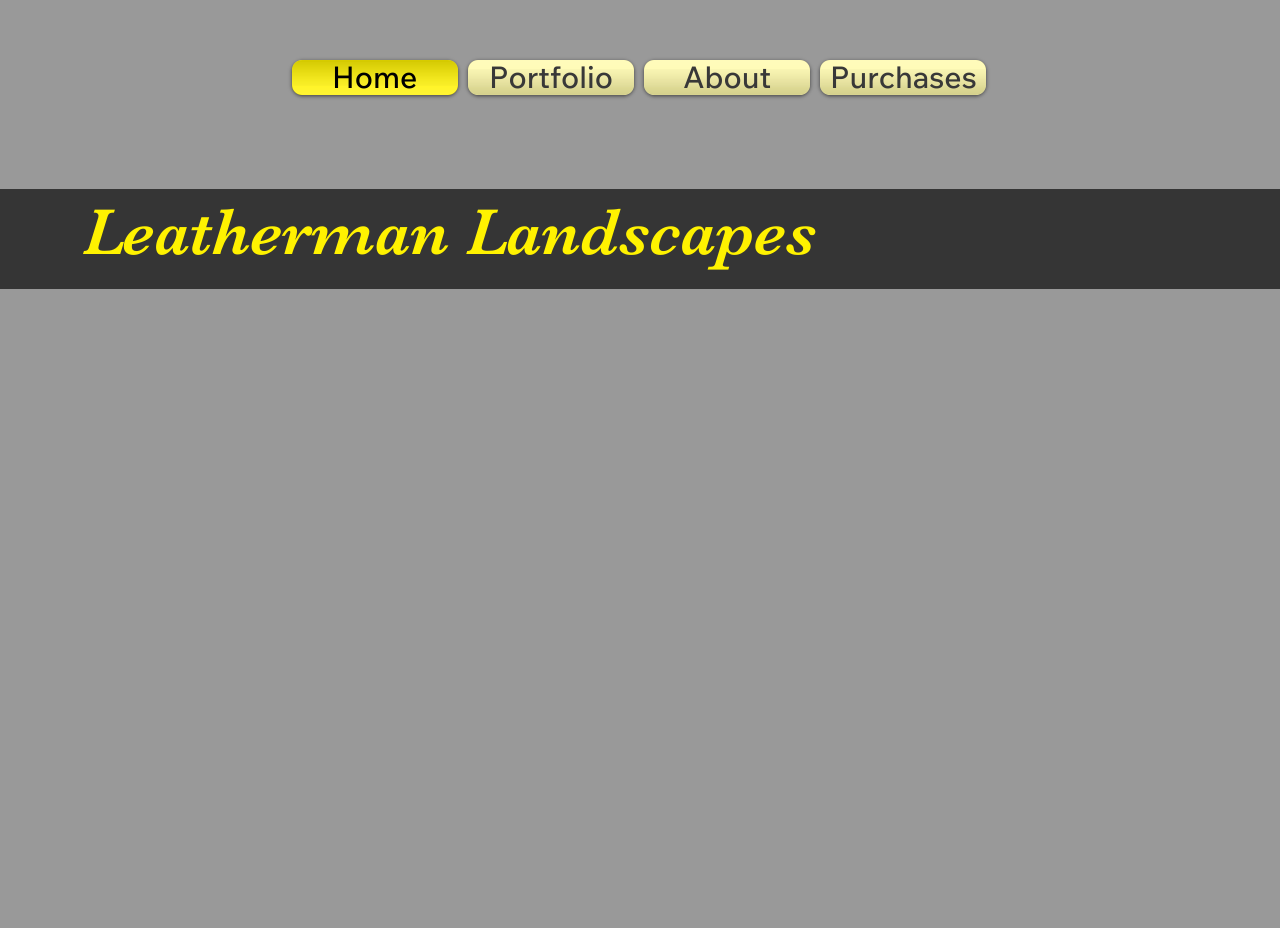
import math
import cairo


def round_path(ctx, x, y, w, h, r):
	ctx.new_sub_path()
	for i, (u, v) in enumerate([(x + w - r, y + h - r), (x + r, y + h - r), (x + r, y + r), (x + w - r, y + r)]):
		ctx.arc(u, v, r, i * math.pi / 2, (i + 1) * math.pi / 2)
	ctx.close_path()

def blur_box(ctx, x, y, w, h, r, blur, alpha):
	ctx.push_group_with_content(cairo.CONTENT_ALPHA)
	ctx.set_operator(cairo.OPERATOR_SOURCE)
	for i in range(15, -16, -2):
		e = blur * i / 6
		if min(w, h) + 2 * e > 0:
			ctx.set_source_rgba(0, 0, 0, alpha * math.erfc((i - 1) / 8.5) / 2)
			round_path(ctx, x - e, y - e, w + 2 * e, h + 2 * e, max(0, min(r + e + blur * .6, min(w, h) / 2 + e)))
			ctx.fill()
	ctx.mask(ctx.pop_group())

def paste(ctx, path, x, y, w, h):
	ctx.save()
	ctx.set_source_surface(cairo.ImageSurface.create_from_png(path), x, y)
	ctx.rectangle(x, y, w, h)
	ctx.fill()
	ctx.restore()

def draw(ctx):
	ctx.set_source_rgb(0.6, 0.6, 0.6)
	ctx.paint()
	ctx.set_source_rgb(0, 0, 0)
	blur_box(ctx, 292, 61, 166, 35, 10, 2, 0.6)
	ctx.set_source_rgb(1, 0.949, 0)
	round_path(ctx, 292, 60, 166, 35, 10)
	ctx.fill()
	paste(ctx, 'media/1.png', 292, 60, 166, 26)
	paste(ctx, 'media/2.png', 292, 62, 166, 33)
	ctx.select_font_face('Wix Madefor Text Medium')
	ctx.set_font_size(30)
	ctx.set_source_rgb(0, 0, 0)
	ctx.move_to(332, 88)
	ctx.show_text('Home')
	ctx.set_source_rgb(0, 0, 0)
	blur_box(ctx, 468, 61, 166, 35, 10, 2, 0.6)
	ctx.set_source_rgb(1, 0.98, 0.667)
	round_path(ctx, 468, 60, 166, 35, 10)
	ctx.fill()
	paste(ctx, 'media/3.png', 468, 60, 166, 27)
	paste(ctx, 'media/4.png', 468, 69, 166, 26)
	ctx.set_source_rgb(0.22, 0.22, 0.22)
	ctx.move_to(489, 88)
	ctx.show_text('Portfolio')
	ctx.set_source_rgb(0, 0, 0)
	blur_box(ctx, 644, 61, 166, 35, 10, 2, 0.6)
	ctx.set_source_rgb(1, 0.98, 0.667)
	round_path(ctx, 644, 60, 166, 35, 10)
	ctx.fill()
	paste(ctx, 'media/5.png', 644, 60, 166, 27)
	paste(ctx, 'media/6.png', 644, 69, 166, 26)
	ctx.set_source_rgb(0.22, 0.22, 0.22)
	ctx.move_to(683, 88)
	ctx.show_text('About')
	ctx.set_source_rgb(0, 0, 0)
	blur_box(ctx, 820, 61, 166, 35, 10, 2, 0.6)
	ctx.set_source_rgb(1, 0.98, 0.667)
	round_path(ctx, 820, 60, 166, 35, 10)
	ctx.fill()
	paste(ctx, 'media/5.png', 820, 60, 166, 27)
	paste(ctx, 'media/6.png', 820, 69, 166, 26)
	ctx.set_source_rgb(0.22, 0.22, 0.22)
	ctx.move_to(830, 88)
	ctx.show_text('Purchases')
	ctx.set_source_rgb(0.208, 0.208, 0.208)
	ctx.rectangle(0, 189, 1280, 100)
	ctx.fill()
	ctx.select_font_face('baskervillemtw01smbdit')
	ctx.set_font_size(67)
	ctx.set_source_rgb(1, 0.949, 0)
	ctx.move_to(83, 254)
	ctx.show_text('Leatherman Landscapes')


surface = cairo.ImageSurface(cairo.FORMAT_RGB24, 1280, 928)
ctx = cairo.Context(surface)
options = cairo.FontOptions()
options.set_hint_metrics(cairo.HINT_METRICS_OFF)
options.set_hint_style(cairo.HINT_STYLE_NONE)
ctx.set_font_options(options)
ctx.set_miter_limit(4)
draw(ctx)
surface.write_to_png('image.png')
